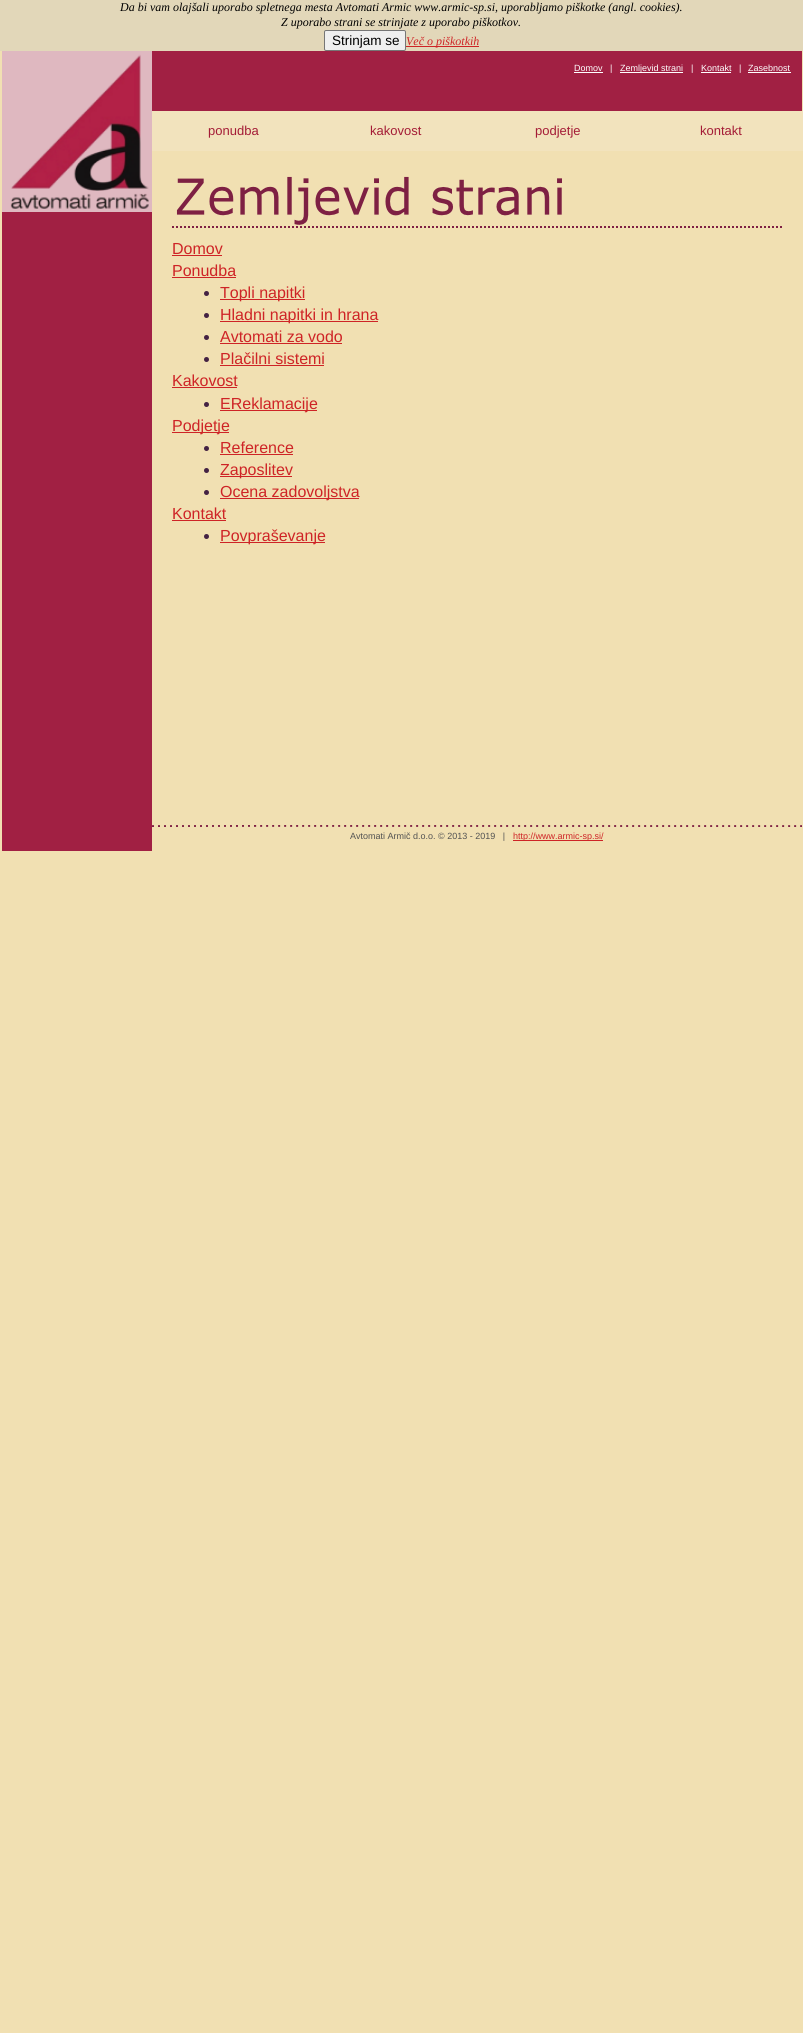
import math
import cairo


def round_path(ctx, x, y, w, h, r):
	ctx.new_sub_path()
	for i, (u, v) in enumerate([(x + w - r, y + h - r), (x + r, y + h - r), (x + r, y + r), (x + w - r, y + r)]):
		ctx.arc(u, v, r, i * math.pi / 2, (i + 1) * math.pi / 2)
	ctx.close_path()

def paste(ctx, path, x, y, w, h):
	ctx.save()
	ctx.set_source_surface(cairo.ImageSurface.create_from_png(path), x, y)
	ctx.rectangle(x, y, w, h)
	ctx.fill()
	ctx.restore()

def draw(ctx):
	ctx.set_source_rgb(0.945, 0.878, 0.698)
	ctx.paint()
	ctx.set_source_rgb(0.886, 0.843, 0.725)
	ctx.rectangle(0, 0, 803, 51)
	ctx.fill()
	ctx.select_font_face('Liberation Serif', cairo.FONT_SLANT_ITALIC)
	ctx.set_font_size(12)
	ctx.set_source_rgb(0, 0, 0)
	ctx.move_to(120, 11)
	ctx.show_text('Da bi vam olajšali uporabo spletnega mesta Avtomati Armic www.armic-sp.si, uporabljamo piškotke (angl. cookies).')
	ctx.move_to(281, 26)
	ctx.show_text('Z uporabo strani se strinjate z uporabo piškotkov.')
	ctx.set_source_rgb(0.937, 0.937, 0.937)
	round_path(ctx, 324.5, 30.5, 81, 20, 1.5)
	ctx.fill_preserve()
	ctx.set_source_rgb(0.463, 0.463, 0.463)
	ctx.set_line_width(1)
	ctx.stroke()
	ctx.select_font_face('Liberation Sans')
	ctx.set_font_size(13.5)
	ctx.set_source_rgb(0, 0, 0)
	ctx.move_to(332, 45)
	ctx.show_text('Strinjam se')
	ctx.set_source_rgb(0.808, 0.141, 0.149)
	ctx.rectangle(406, 46, 73, 1)
	ctx.fill()
	ctx.select_font_face('Liberation Serif', cairo.FONT_SLANT_ITALIC)
	ctx.set_font_size(12)
	ctx.move_to(406, 45)
	ctx.show_text('Več o piškotkih')
	paste(ctx, 'media/1.png', 2, 51, 150, 161)
	ctx.set_source_rgb(0.631, 0.125, 0.263)
	ctx.rectangle(152, 51, 650, 60)
	ctx.fill()
	ctx.select_font_face('Liberation Sans')
	ctx.set_font_size(9)
	ctx.set_source_rgb(1, 1, 1)
	ctx.move_to(574, 71)
	ctx.show_text('Domov')
	ctx.rectangle(574, 72, 29, 1)
	ctx.fill()
	ctx.move_to(610, 71)
	ctx.show_text('|')
	ctx.rectangle(620, 72, 63, 1)
	ctx.fill()
	for x, y, s in [
		(620, 71, 'Zemljevid strani'),
		(691, 71, '|'),
		(701, 71, 'Kontakt'),
	]:
		ctx.move_to(x, y)
		ctx.show_text(s)
	ctx.rectangle(701, 72, 30, 1)
	ctx.fill()
	ctx.move_to(739, 71)
	ctx.show_text('|')
	ctx.move_to(748, 71)
	ctx.show_text('Zasebnost')
	ctx.rectangle(748, 72, 43, 1)
	ctx.fill()
	ctx.set_source_rgb(0.949, 0.89, 0.741)
	ctx.rectangle(152, 111, 651, 40)
	ctx.fill()
	ctx.set_font_size(13)
	ctx.set_source_rgb(0.643, 0.11, 0.212)
	for x, y, s in [
		(208, 135, 'ponudba'),
		(370, 135, 'kakovost'),
		(535, 135, 'podjetje'),
		(700, 135, 'kontakt'),
	]:
		ctx.move_to(x, y)
		ctx.show_text(s)
	paste(ctx, 'media/2.png', 176, 176, 386, 49)
	ctx.set_source_rgb(0.631, 0.125, 0.263)
	ctx.rectangle(2, 212, 150, 639)
	ctx.fill()
	paste(ctx, 'media/3.png', 172, 226, 610, 2)
	ctx.set_font_size(16)
	ctx.set_source_rgb(0.808, 0.141, 0.149)
	ctx.move_to(172, 254)
	ctx.show_text('Domov')
	ctx.rectangle(172, 255, 50, 1)
	ctx.fill()
	ctx.move_to(172, 276)
	ctx.show_text('Ponudba')
	ctx.rectangle(172, 277, 64, 1)
	ctx.fill()
	ctx.set_source_rgb(0.267, 0.133, 0.263)
	ctx.arc(206.5, 293.5, 2.5, 0, 2 * math.pi)
	ctx.fill()
	ctx.set_source_rgb(0.808, 0.141, 0.149)
	ctx.rectangle(220, 299, 85, 1)
	ctx.fill()
	ctx.move_to(220, 298)
	ctx.show_text('Topli napitki')
	ctx.set_source_rgb(0.267, 0.133, 0.263)
	ctx.new_path()
	ctx.arc(206.5, 315.5, 2.5, 0, 2 * math.pi)
	ctx.fill()
	ctx.set_source_rgb(0.808, 0.141, 0.149)
	ctx.rectangle(220, 321, 158, 1)
	ctx.fill()
	ctx.move_to(220, 320)
	ctx.show_text('Hladni napitki in hrana')
	ctx.set_source_rgb(0.267, 0.133, 0.263)
	ctx.new_path()
	ctx.arc(206.5, 337.5, 2.5, 0, 2 * math.pi)
	ctx.fill()
	ctx.set_source_rgb(0.808, 0.141, 0.149)
	ctx.move_to(220, 342)
	ctx.show_text('Avtomati za vodo')
	ctx.rectangle(220, 343, 122, 1)
	ctx.fill()
	ctx.set_source_rgb(0.267, 0.133, 0.263)
	ctx.arc(206.5, 359.5, 2.5, 0, 2 * math.pi)
	ctx.fill()
	ctx.set_source_rgb(0.808, 0.141, 0.149)
	ctx.move_to(220, 364)
	ctx.show_text('Plačilni sistemi')
	ctx.rectangle(220, 365, 104, 1)
	ctx.fill()
	ctx.move_to(172, 386)
	ctx.show_text('Kakovost')
	ctx.rectangle(172, 387, 65, 1)
	ctx.fill()
	ctx.set_source_rgb(0.267, 0.133, 0.263)
	ctx.arc(206.5, 404.5, 2.5, 0, 2 * math.pi)
	ctx.fill()
	ctx.set_source_rgb(0.808, 0.141, 0.149)
	ctx.rectangle(220, 410, 97, 1)
	ctx.fill()
	ctx.move_to(220, 409)
	ctx.show_text('EReklamacije')
	ctx.rectangle(172, 432, 57, 1)
	ctx.fill()
	ctx.move_to(172, 431)
	ctx.show_text('Podjetje')
	ctx.set_source_rgb(0.267, 0.133, 0.263)
	ctx.new_path()
	ctx.arc(206.5, 448.5, 2.5, 0, 2 * math.pi)
	ctx.fill()
	ctx.set_source_rgb(0.808, 0.141, 0.149)
	ctx.move_to(220, 453)
	ctx.show_text('Reference')
	ctx.rectangle(220, 454, 73, 1)
	ctx.fill()
	ctx.set_source_rgb(0.267, 0.133, 0.263)
	ctx.arc(206.5, 470.5, 2.5, 0, 2 * math.pi)
	ctx.fill()
	ctx.set_source_rgb(0.808, 0.141, 0.149)
	ctx.rectangle(220, 476, 72, 1)
	ctx.fill()
	ctx.move_to(220, 475)
	ctx.show_text('Zaposlitev')
	ctx.set_source_rgb(0.267, 0.133, 0.263)
	ctx.new_path()
	ctx.arc(206.5, 492.5, 2.5, 0, 2 * math.pi)
	ctx.fill()
	ctx.set_source_rgb(0.808, 0.141, 0.149)
	ctx.rectangle(220, 498, 139, 1)
	ctx.fill()
	ctx.move_to(220, 497)
	ctx.show_text('Ocena zadovoljstva')
	ctx.move_to(172, 519)
	ctx.show_text('Kontakt')
	ctx.rectangle(172, 520, 54, 1)
	ctx.fill()
	ctx.set_source_rgb(0.267, 0.133, 0.263)
	ctx.arc(206.5, 536.5, 2.5, 0, 2 * math.pi)
	ctx.fill()
	ctx.set_source_rgb(0.808, 0.141, 0.149)
	ctx.rectangle(220, 542, 105, 1)
	ctx.fill()
	ctx.move_to(220, 541)
	ctx.show_text('Povpraševanje')
	paste(ctx, 'media/4.png', 152, 825, 650, 2)
	ctx.set_font_size(9)
	ctx.set_source_rgb(0.322, 0.322, 0.322)
	ctx.move_to(350, 839)
	ctx.show_text('Avtomati Armič d.o.o. © 2013 - 2019   |')
	ctx.set_source_rgb(0.808, 0.141, 0.149)
	ctx.rectangle(513, 840, 90, 1)
	ctx.fill()
	ctx.move_to(513, 839)
	ctx.show_text('http://www.armic-sp.si/')


surface = cairo.ImageSurface(cairo.FORMAT_RGB24, 803, 2033)
ctx = cairo.Context(surface)
options = cairo.FontOptions()
options.set_hint_metrics(cairo.HINT_METRICS_OFF)
options.set_hint_style(cairo.HINT_STYLE_NONE)
ctx.set_font_options(options)
ctx.set_miter_limit(4)
draw(ctx)
surface.write_to_png('image.png')
